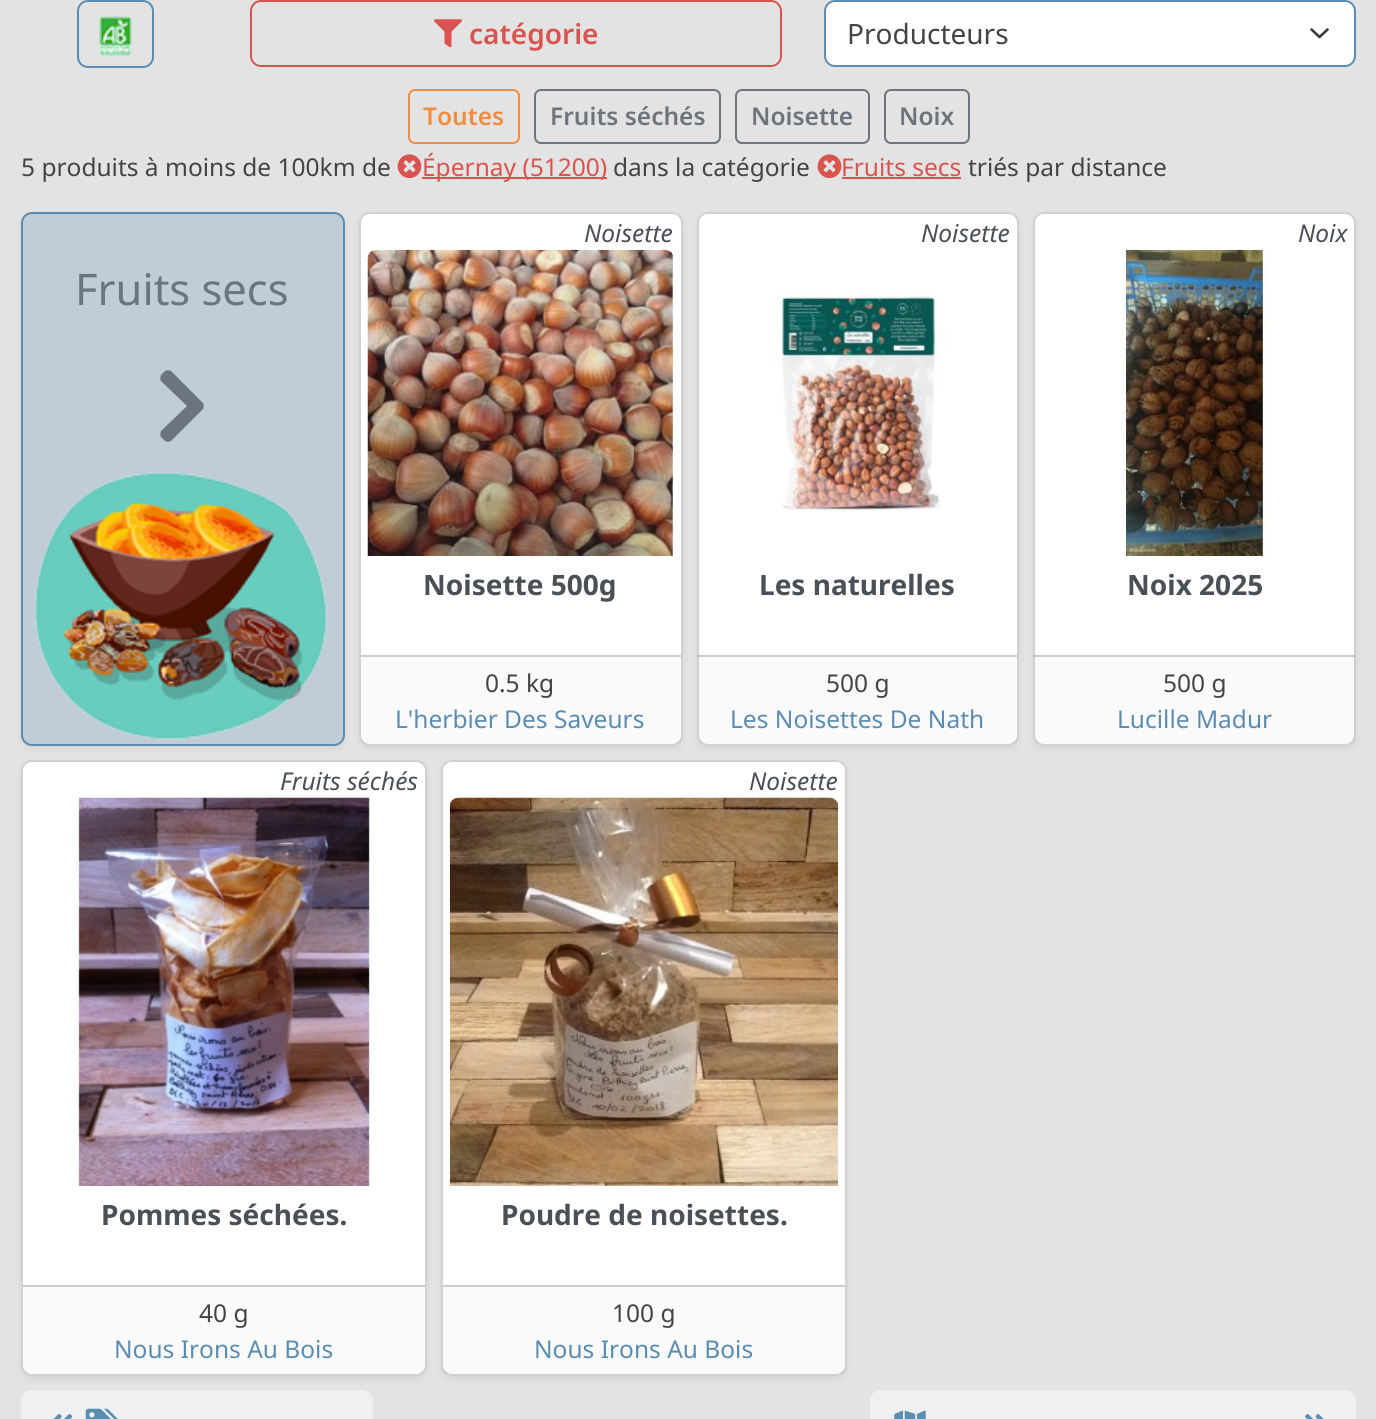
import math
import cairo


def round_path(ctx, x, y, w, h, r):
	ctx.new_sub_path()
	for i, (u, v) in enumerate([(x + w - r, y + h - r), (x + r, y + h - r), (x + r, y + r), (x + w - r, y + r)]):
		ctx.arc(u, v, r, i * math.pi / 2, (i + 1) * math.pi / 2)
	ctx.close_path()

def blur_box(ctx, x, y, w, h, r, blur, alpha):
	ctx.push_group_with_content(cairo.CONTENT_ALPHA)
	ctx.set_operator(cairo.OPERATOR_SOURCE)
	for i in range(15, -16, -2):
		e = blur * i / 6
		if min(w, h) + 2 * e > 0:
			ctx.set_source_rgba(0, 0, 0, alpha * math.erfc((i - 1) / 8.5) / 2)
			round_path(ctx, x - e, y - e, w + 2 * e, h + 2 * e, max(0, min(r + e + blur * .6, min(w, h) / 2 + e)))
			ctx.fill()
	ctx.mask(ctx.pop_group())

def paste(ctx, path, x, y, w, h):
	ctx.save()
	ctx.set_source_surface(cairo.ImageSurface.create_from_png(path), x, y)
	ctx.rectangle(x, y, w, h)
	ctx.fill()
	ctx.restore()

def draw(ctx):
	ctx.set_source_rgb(0.89, 0.89, 0.89)
	ctx.paint()
	round_path(ctx, 78, 1, 75, 66, 10)
	ctx.set_source_rgb(0.357, 0.549, 0.694)
	ctx.stroke()
	paste(ctx, 'media/1.png', 99, 16, 33, 40)
	round_path(ctx, 251, 1, 530, 65, 10)
	ctx.set_source_rgb(0.851, 0.325, 0.31)
	ctx.stroke()
	paste(ctx, 'media/2.png', 434, 19, 28, 29)
	ctx.select_font_face('Noto Sans SemiBold')
	ctx.set_font_size(28)
	ctx.move_to(469, 44)
	ctx.show_text('catégorie')
	ctx.set_source_rgb(1, 1, 1)
	round_path(ctx, 824, 0, 532, 67, 11)
	ctx.fill()
	ctx.new_path()
	ctx.move_to(1311.5, 29.5)
	ctx.line_to(1319.5, 37)
	ctx.line_to(1327.5, 29.5)
	ctx.set_source_rgb(0.204, 0.227, 0.251)
	ctx.set_line_width(2.6)
	ctx.set_line_cap(cairo.LINE_CAP_ROUND)
	ctx.set_line_join(cairo.LINE_JOIN_ROUND)
	ctx.stroke()
	round_path(ctx, 825, 1, 530, 65, 10)
	ctx.set_source_rgb(0.357, 0.549, 0.694)
	ctx.set_line_width(2)
	ctx.set_line_cap(cairo.LINE_CAP_BUTT)
	ctx.set_line_join(cairo.LINE_JOIN_MITER)
	ctx.stroke()
	ctx.select_font_face('Noto Sans')
	ctx.set_source_rgb(0.267, 0.267, 0.267)
	ctx.move_to(847, 44)
	ctx.show_text('Producteurs')
	round_path(ctx, 409, 90, 110, 53, 6)
	ctx.set_source_rgb(0.953, 0.553, 0.239)
	ctx.stroke()
	ctx.select_font_face('Noto Sans SemiBold')
	ctx.set_font_size(24.5)
	ctx.move_to(423, 125)
	ctx.show_text('Toutes')
	round_path(ctx, 535, 90, 185, 53, 6)
	ctx.set_source_rgb(0.424, 0.459, 0.49)
	ctx.stroke()
	ctx.move_to(550, 125)
	ctx.show_text('Fruits séchés')
	round_path(ctx, 736, 90, 133, 53, 6)
	ctx.stroke()
	ctx.move_to(751, 125)
	ctx.show_text('Noisette')
	round_path(ctx, 885, 90, 84, 53, 6)
	ctx.stroke()
	ctx.move_to(899, 125)
	ctx.show_text('Noix')
	ctx.select_font_face('Noto Sans')
	ctx.set_source_rgb(0.267, 0.267, 0.267)
	ctx.move_to(21, 176)
	ctx.show_text('5 produits à moins de 100km de')
	paste(ctx, 'media/3.png', 397, 154, 25, 25)
	ctx.set_source_rgb(0.851, 0.325, 0.31)
	ctx.rectangle(422, 177, 185, 2)
	ctx.fill()
	ctx.move_to(422, 176)
	ctx.show_text('Épernay (51200)')
	ctx.set_source_rgb(0.267, 0.267, 0.267)
	ctx.move_to(613, 176)
	ctx.show_text('dans la catégorie')
	paste(ctx, 'media/3.png', 817, 154, 25, 25)
	ctx.set_source_rgb(0.851, 0.325, 0.31)
	ctx.move_to(841, 176)
	ctx.show_text('Fruits secs')
	ctx.rectangle(842, 177, 119, 2)
	ctx.fill()
	ctx.set_source_rgb(0.267, 0.267, 0.267)
	ctx.move_to(968, 176)
	ctx.show_text('triés par distance')
	ctx.save()
	ctx.set_fill_rule(cairo.FILL_RULE_EVEN_ODD)
	ctx.new_path()
	ctx.move_to(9, 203)
	ctx.line_to(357, 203)
	ctx.line_to(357, 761)
	ctx.line_to(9, 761)
	ctx.close_path()
	ctx.move_to(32, 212)
	ctx.line_to(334, 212)
	ctx.curve_to(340, 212, 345, 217, 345, 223)
	ctx.line_to(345, 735)
	ctx.curve_to(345, 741, 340, 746, 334, 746)
	ctx.line_to(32, 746)
	ctx.curve_to(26, 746, 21, 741, 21, 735)
	ctx.line_to(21, 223)
	ctx.curve_to(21, 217, 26, 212, 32, 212)
	ctx.close_path()
	ctx.clip()
	ctx.set_source_rgb(0, 0, 0)
	blur_box(ctx, 21, 215, 324, 534, 11, 3.5, 0.07)
	ctx.restore()
	ctx.set_source_rgba(0.357, 0.549, 0.694, 0.25)
	round_path(ctx, 22, 213, 322, 532, 10)
	ctx.fill_preserve()
	ctx.set_source_rgb(0.357, 0.549, 0.694)
	ctx.stroke()
	ctx.set_font_size(43.5)
	ctx.set_source_rgb(0.424, 0.459, 0.49)
	ctx.move_to(75, 305)
	ctx.show_text('Fruits secs')
	ctx.new_path()
	ctx.move_to(203, 409)
	ctx.line_to(171, 441)
	ctx.curve_to(169, 442, 167, 442, 165, 441)
	ctx.line_to(161, 437)
	ctx.curve_to(160, 435, 160, 433, 161, 431)
	ctx.line_to(187, 406)
	ctx.line_to(161, 381)
	ctx.curve_to(160, 379, 160, 377, 161, 375)
	ctx.line_to(165, 371)
	ctx.curve_to(167, 370, 169, 370, 171, 371)
	ctx.line_to(203, 403)
	ctx.curve_to(204, 405, 204, 407, 203, 409)
	ctx.close_path()
	ctx.fill()
	paste(ctx, 'media/4.png', 34, 472, 294, 268)
	ctx.set_source_rgb(0, 0, 0)
	blur_box(ctx, 359, 215, 324, 534, 11, 3.5, 0.07)
	ctx.set_source_rgb(1, 1, 1)
	round_path(ctx, 359, 212, 324, 534, 11)
	ctx.fill()
	round_path(ctx, 360, 213, 322, 532, 10)
	ctx.set_source_rgba(0, 0, 0, 0.18)
	ctx.stroke()
	ctx.select_font_face('Noto Sans', cairo.FONT_SLANT_ITALIC)
	ctx.set_font_size(24.5)
	ctx.set_source_rgb(0.286, 0.314, 0.341)
	ctx.move_to(584, 242)
	ctx.show_text('Noisette')
	paste(ctx, 'media/5.png', 367, 249, 307, 307)
	ctx.select_font_face('Noto Sans', cairo.FONT_SLANT_NORMAL, cairo.FONT_WEIGHT_BOLD)
	ctx.set_font_size(28)
	ctx.move_to(423, 595)
	ctx.show_text('Noisette 500g')
	ctx.set_source_rgba(0.267, 0.267, 0.267, 0.03)
	ctx.rectangle(361, 657, 320, 87)
	ctx.fill()
	ctx.set_source_rgb(0.804, 0.804, 0.804)
	ctx.rectangle(361, 655, 320, 2)
	ctx.fill()
	ctx.select_font_face('Noto Sans')
	ctx.set_font_size(24.5)
	ctx.set_source_rgb(0.267, 0.267, 0.267)
	ctx.move_to(485, 692)
	ctx.show_text('0.5 kg')
	ctx.set_source_rgb(0.357, 0.549, 0.694)
	ctx.move_to(395, 728)
	ctx.show_text('L\'herbier Des Saveurs')
	ctx.set_source_rgb(0, 0, 0)
	blur_box(ctx, 697, 215, 322, 534, 11, 3.5, 0.07)
	ctx.set_source_rgb(1, 1, 1)
	round_path(ctx, 697, 212, 322, 534, 11)
	ctx.fill()
	round_path(ctx, 698, 213, 320, 532, 10)
	ctx.set_source_rgba(0, 0, 0, 0.18)
	ctx.stroke()
	ctx.select_font_face('Noto Sans', cairo.FONT_SLANT_ITALIC)
	ctx.set_source_rgb(0.286, 0.314, 0.341)
	ctx.move_to(921, 242)
	ctx.show_text('Noisette')
	paste(ctx, 'media/6.png', 770, 293, 179, 218)
	ctx.select_font_face('Noto Sans', cairo.FONT_SLANT_NORMAL, cairo.FONT_WEIGHT_BOLD)
	ctx.set_font_size(28)
	ctx.move_to(759, 595)
	ctx.show_text('Les naturelles')
	ctx.set_source_rgba(0.267, 0.267, 0.267, 0.03)
	ctx.rectangle(698, 655, 319, 89)
	ctx.fill()
	ctx.set_source_rgba(0, 0, 0, 0.18)
	ctx.rectangle(698, 655, 319, 2)
	ctx.fill()
	ctx.select_font_face('Noto Sans')
	ctx.set_font_size(24.5)
	ctx.set_source_rgb(0.267, 0.267, 0.267)
	ctx.move_to(826, 692)
	ctx.show_text('500 g')
	ctx.set_source_rgb(0.357, 0.549, 0.694)
	ctx.move_to(730, 728)
	ctx.show_text('Les Noisettes De Nath')
	ctx.set_source_rgb(0, 0, 0)
	blur_box(ctx, 1033, 215, 323, 534, 11, 3.5, 0.07)
	ctx.set_source_rgb(1, 1, 1)
	round_path(ctx, 1033, 212, 323, 534, 11)
	ctx.fill()
	round_path(ctx, 1034, 213, 321, 532, 10)
	ctx.set_source_rgba(0, 0, 0, 0.18)
	ctx.stroke()
	ctx.select_font_face('Noto Sans', cairo.FONT_SLANT_ITALIC)
	ctx.set_source_rgb(0.286, 0.314, 0.341)
	ctx.move_to(1298, 242)
	ctx.show_text('Noix')
	paste(ctx, 'media/7.png', 1122, 249, 148, 307)
	ctx.select_font_face('Noto Sans', cairo.FONT_SLANT_NORMAL, cairo.FONT_WEIGHT_BOLD)
	ctx.set_font_size(28)
	ctx.move_to(1127, 595)
	ctx.show_text('Noix 2025')
	ctx.set_source_rgba(0.267, 0.267, 0.267, 0.03)
	ctx.rectangle(1034, 655, 321, 89)
	ctx.fill()
	ctx.set_source_rgba(0, 0, 0, 0.18)
	ctx.rectangle(1034, 655, 321, 2)
	ctx.fill()
	ctx.select_font_face('Noto Sans')
	ctx.set_font_size(24.5)
	ctx.set_source_rgb(0.267, 0.267, 0.267)
	ctx.move_to(1163, 692)
	ctx.show_text('500 g')
	ctx.set_source_rgb(0.357, 0.549, 0.694)
	ctx.move_to(1117, 728)
	ctx.show_text('Lucille Madur')
	ctx.set_source_rgb(0.941, 0.941, 0.941)
	round_path(ctx, 22, 1391, 350, 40, 10)
	ctx.fill_preserve()
	ctx.stroke()
	ctx.set_source_rgb(0, 0, 0)
	blur_box(ctx, 21, 763, 406, 616, 11, 3.5, 0.07)
	ctx.set_source_rgb(1, 1, 1)
	round_path(ctx, 21, 760, 406, 616, 11)
	ctx.fill()
	round_path(ctx, 22, 761, 404, 614, 10)
	ctx.set_source_rgba(0, 0, 0, 0.18)
	ctx.stroke()
	ctx.select_font_face('Noto Sans', cairo.FONT_SLANT_ITALIC)
	ctx.set_source_rgb(0.286, 0.314, 0.341)
	ctx.move_to(280, 790)
	ctx.show_text('Fruits séchés')
	paste(ctx, 'media/8.png', 78, 797, 292, 389)
	ctx.select_font_face('Noto Sans', cairo.FONT_SLANT_NORMAL, cairo.FONT_WEIGHT_BOLD)
	ctx.set_font_size(28)
	ctx.move_to(101, 1225)
	ctx.show_text('Pommes séchées.')
	ctx.set_source_rgba(0.267, 0.267, 0.267, 0.03)
	ctx.rectangle(23, 1287, 402, 87)
	ctx.fill()
	ctx.set_source_rgb(0.804, 0.804, 0.804)
	ctx.rectangle(23, 1285, 402, 2)
	ctx.fill()
	ctx.select_font_face('Noto Sans')
	ctx.set_font_size(24.5)
	ctx.set_source_rgb(0.267, 0.267, 0.267)
	ctx.move_to(199, 1322)
	ctx.show_text('40 g')
	ctx.set_source_rgb(0.357, 0.549, 0.694)
	ctx.move_to(114, 1358)
	ctx.show_text('Nous Irons Au Bois')
	ctx.set_source_rgb(0, 0, 0)
	blur_box(ctx, 441, 763, 406, 616, 11, 3.5, 0.07)
	ctx.set_source_rgb(1, 1, 1)
	round_path(ctx, 441, 760, 406, 616, 11)
	ctx.fill()
	round_path(ctx, 442, 761, 404, 614, 10)
	ctx.set_source_rgba(0, 0, 0, 0.18)
	ctx.stroke()
	ctx.select_font_face('Noto Sans', cairo.FONT_SLANT_ITALIC)
	ctx.set_source_rgb(0.286, 0.314, 0.341)
	ctx.move_to(749, 790)
	ctx.show_text('Noisette')
	paste(ctx, 'media/9.png', 449, 797, 390, 389)
	ctx.select_font_face('Noto Sans', cairo.FONT_SLANT_NORMAL, cairo.FONT_WEIGHT_BOLD)
	ctx.set_font_size(28)
	ctx.move_to(501, 1225)
	ctx.show_text('Poudre de noisettes.')
	ctx.set_source_rgba(0.267, 0.267, 0.267, 0.03)
	ctx.rectangle(443, 1287, 402, 87)
	ctx.fill()
	ctx.set_source_rgb(0.804, 0.804, 0.804)
	ctx.rectangle(443, 1285, 402, 2)
	ctx.fill()
	ctx.select_font_face('Noto Sans')
	ctx.set_font_size(24.5)
	ctx.set_source_rgb(0.267, 0.267, 0.267)
	ctx.move_to(612, 1322)
	ctx.show_text('100 g')
	ctx.set_source_rgb(0.357, 0.549, 0.694)
	ctx.move_to(534, 1358)
	ctx.show_text('Nous Irons Au Bois')
	paste(ctx, 'media/10.png', 53, 1414, 20, 5)
	paste(ctx, 'media/11.png', 85, 1408, 33, 11)
	ctx.set_source_rgb(0.941, 0.941, 0.941)
	round_path(ctx, 871, 1391, 484, 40, 10)
	ctx.fill_preserve()
	ctx.stroke()
	paste(ctx, 'media/12.png', 894, 1410, 32, 9)
	paste(ctx, 'media/13.png', 1305, 1414, 19, 5)


surface = cairo.ImageSurface(cairo.FORMAT_RGB24, 1376, 1419)
ctx = cairo.Context(surface)
options = cairo.FontOptions()
options.set_hint_metrics(cairo.HINT_METRICS_OFF)
options.set_hint_style(cairo.HINT_STYLE_NONE)
ctx.set_font_options(options)
ctx.set_miter_limit(4)
draw(ctx)
surface.write_to_png('image.png')
